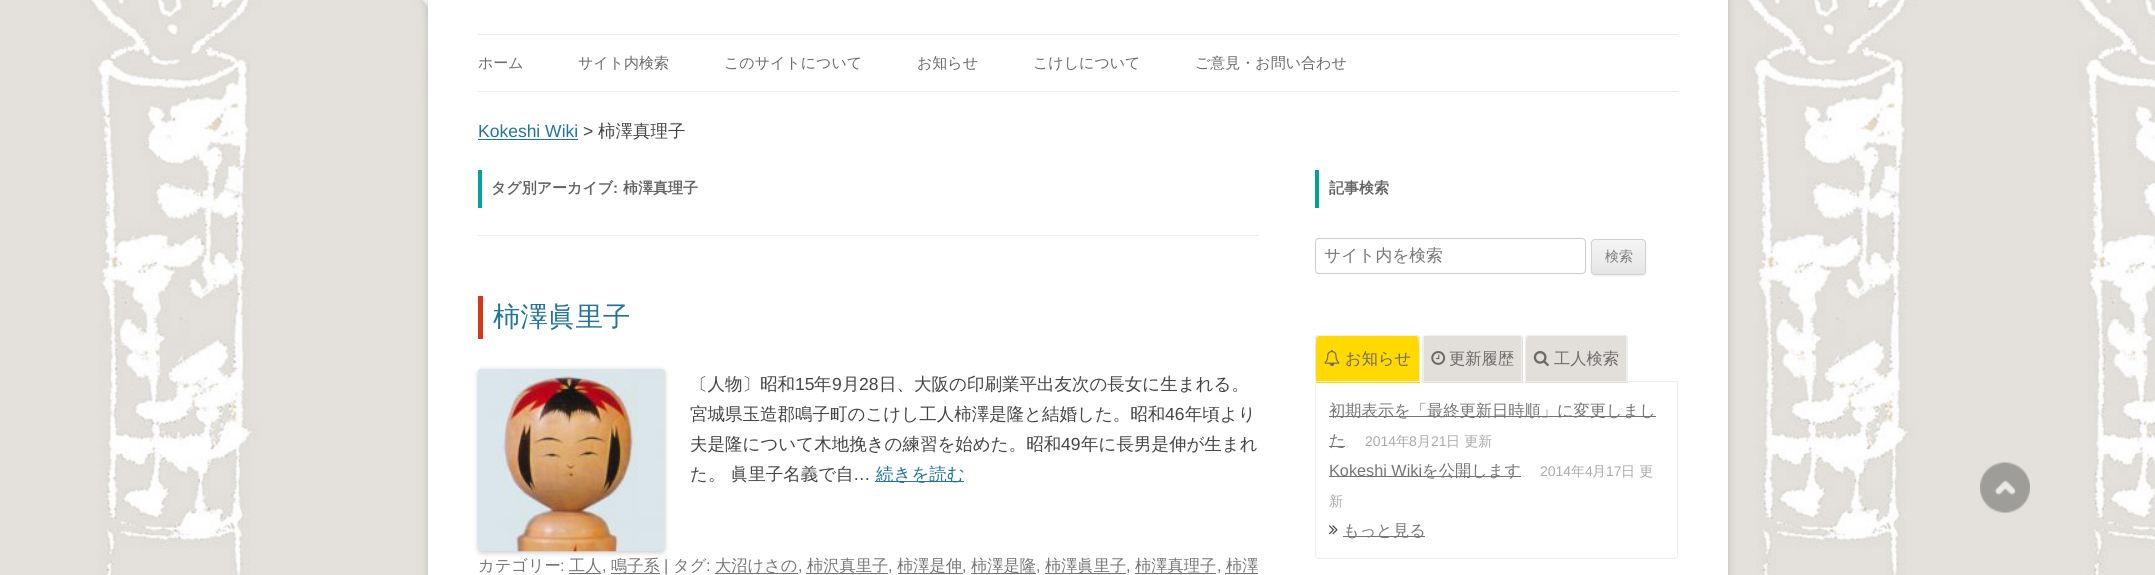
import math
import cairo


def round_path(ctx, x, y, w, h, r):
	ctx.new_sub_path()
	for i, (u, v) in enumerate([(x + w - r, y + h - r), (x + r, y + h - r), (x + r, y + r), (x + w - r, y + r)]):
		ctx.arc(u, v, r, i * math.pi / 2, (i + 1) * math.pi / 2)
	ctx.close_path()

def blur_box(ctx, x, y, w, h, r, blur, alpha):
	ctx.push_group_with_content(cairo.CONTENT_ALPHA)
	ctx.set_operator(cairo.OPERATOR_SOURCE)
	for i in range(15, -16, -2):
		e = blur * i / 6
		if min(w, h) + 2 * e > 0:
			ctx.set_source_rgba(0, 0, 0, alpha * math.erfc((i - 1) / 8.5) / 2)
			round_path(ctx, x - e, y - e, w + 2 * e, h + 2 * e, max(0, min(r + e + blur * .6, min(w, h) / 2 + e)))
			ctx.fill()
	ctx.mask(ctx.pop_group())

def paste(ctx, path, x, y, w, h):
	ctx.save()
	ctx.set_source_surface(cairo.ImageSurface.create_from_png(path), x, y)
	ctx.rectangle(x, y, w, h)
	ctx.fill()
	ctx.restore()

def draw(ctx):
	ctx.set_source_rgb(1, 1, 1)
	ctx.paint()
	paste(ctx, 'media/1.png', 0, 0, 2155, 575)
	ctx.set_source_rgb(0.392, 0.392, 0.392)
	blur_box(ctx, 428, -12, 1300, 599, 0, 4, 0.3)
	ctx.set_source_rgb(1, 1, 1)
	ctx.rectangle(428, 0, 1300, 575)
	ctx.fill()
	ctx.set_source_rgb(0.929, 0.929, 0.929)
	ctx.rectangle(478, 34, 1200, 1)
	ctx.rectangle(478, 91, 1200, 1)
	ctx.fill()
	ctx.select_font_face('WenQuanYi Zen Hei Medium')
	ctx.set_font_size(15)
	ctx.set_source_rgb(0.416, 0.416, 0.416)
	for x, y, s in [
		(478, 68, 'ホーム'),
		(578, 68, 'サイト内検索'),
		(724, 68, 'このサイトについて'),
		(917, 68, 'お知らせ'),
		(1033, 68, 'こけしについて'),
		(1195, 68, 'ご意見・お問い合わせ'),
	]:
		ctx.move_to(x, y)
		ctx.show_text(s)
	ctx.select_font_face('Liberation Sans')
	ctx.set_font_size(17.5)
	ctx.set_source_rgb(0.129, 0.459, 0.608)
	ctx.move_to(478, 137)
	ctx.show_text('Kokeshi Wiki')
	ctx.rectangle(478, 139, 100, 1)
	ctx.fill()
	ctx.set_source_rgb(0.267, 0.267, 0.267)
	ctx.move_to(583, 137)
	ctx.show_text('>')
	ctx.select_font_face('WenQuanYi Zen Hei Medium')
	ctx.move_to(598, 137)
	ctx.show_text('柿澤真理子')
	ctx.set_source_rgb(0.929, 0.929, 0.929)
	ctx.rectangle(478, 235, 781, 1)
	ctx.fill()
	ctx.set_source_rgb(0, 0.643, 0.592)
	ctx.rectangle(478, 170, 4, 38)
	ctx.fill()
	ctx.select_font_face('WenQuanYi Zen Hei', cairo.FONT_SLANT_NORMAL, cairo.FONT_WEIGHT_BOLD)
	ctx.set_font_size(15)
	ctx.set_source_rgb(0.388, 0.388, 0.388)
	ctx.move_to(491, 193)
	ctx.show_text('タグ別アーカイブ')
	ctx.select_font_face('Liberation Sans', cairo.FONT_SLANT_NORMAL, cairo.FONT_WEIGHT_BOLD)
	ctx.move_to(613, 193)
	ctx.show_text(':')
	ctx.select_font_face('WenQuanYi Zen Hei', cairo.FONT_SLANT_NORMAL, cairo.FONT_WEIGHT_BOLD)
	ctx.move_to(623, 193)
	ctx.show_text('柿澤真理子')
	ctx.set_source_rgb(0.827, 0.22, 0.11)
	ctx.rectangle(478, 296, 5, 43)
	ctx.fill()
	ctx.select_font_face('WenQuanYi Zen Hei Medium')
	ctx.set_font_size(27.5)
	ctx.set_source_rgb(0.129, 0.459, 0.608)
	ctx.move_to(493, 326)
	ctx.show_text('柿澤眞里子')
	ctx.set_source_rgb(0, 0, 0)
	blur_box(ctx, 478, 370, 187, 183, 4, 2.5, 0.2)
	paste(ctx, 'media/2.png', 477, 369, 188, 183)
	ctx.set_font_size(17.5)
	ctx.set_source_rgb(0.267, 0.267, 0.267)
	ctx.move_to(690, 390)
	ctx.show_text('〔人物〕昭和')
	ctx.select_font_face('Liberation Sans')
	ctx.move_to(795, 390)
	ctx.show_text('15')
	ctx.select_font_face('WenQuanYi Zen Hei Medium')
	ctx.move_to(814, 390)
	ctx.show_text('年')
	ctx.select_font_face('Liberation Sans')
	ctx.move_to(832, 390)
	ctx.show_text('9')
	ctx.select_font_face('WenQuanYi Zen Hei Medium')
	ctx.move_to(842, 390)
	ctx.show_text('月')
	ctx.select_font_face('Liberation Sans')
	ctx.move_to(859, 390)
	ctx.show_text('28')
	ctx.select_font_face('WenQuanYi Zen Hei Medium')
	ctx.move_to(879, 390)
	ctx.show_text('日、大阪の印刷業平出友次の長女に生まれる。')
	ctx.move_to(690, 420)
	ctx.show_text('宮城県玉造郡鳴子町のこけし工人柿澤是隆と結婚した。昭和')
	ctx.select_font_face('Liberation Sans')
	ctx.move_to(1165, 420)
	ctx.show_text('46')
	ctx.select_font_face('WenQuanYi Zen Hei Medium')
	ctx.move_to(1185, 420)
	ctx.show_text('年頃より')
	ctx.move_to(690, 450)
	ctx.show_text('夫是隆について木地挽きの練習を始めた。昭和')
	ctx.select_font_face('Liberation Sans')
	ctx.move_to(1061, 450)
	ctx.show_text('49')
	ctx.select_font_face('WenQuanYi Zen Hei Medium')
	ctx.move_to(1081, 450)
	ctx.show_text('年に長男是伸が生まれ')
	ctx.move_to(690, 480)
	ctx.show_text('た。 眞里子名義で自')
	ctx.select_font_face('Liberation Sans')
	ctx.move_to(853, 480)
	ctx.show_text('…')
	ctx.set_source_rgb(0.129, 0.459, 0.608)
	ctx.rectangle(875, 481, 89, 1)
	ctx.fill()
	ctx.select_font_face('WenQuanYi Zen Hei Medium')
	ctx.move_to(876, 480)
	ctx.show_text('続きを読む')
	ctx.set_font_size(16.25)
	ctx.set_source_rgb(0.459, 0.459, 0.459)
	ctx.move_to(478, 571)
	ctx.show_text('カテゴリー')
	ctx.select_font_face('Liberation Sans')
	ctx.move_to(560, 571)
	ctx.show_text(':')
	ctx.rectangle(569, 573, 32, 1)
	ctx.fill()
	ctx.select_font_face('WenQuanYi Zen Hei Medium')
	ctx.move_to(569, 571)
	ctx.show_text('工人')
	ctx.rectangle(611, 573, 49, 1)
	ctx.fill()
	ctx.move_to(611, 571)
	ctx.show_text('鳴子系')
	ctx.select_font_face('Liberation Sans')
	ctx.move_to(664, 571)
	ctx.show_text('|')
	ctx.select_font_face('WenQuanYi Zen Hei Medium')
	ctx.move_to(673, 571)
	ctx.show_text('タグ')
	ctx.select_font_face('Liberation Sans')
	ctx.move_to(706, 571)
	ctx.show_text(':')
	ctx.rectangle(715, 573, 83, 1)
	ctx.fill()
	ctx.select_font_face('WenQuanYi Zen Hei Medium')
	ctx.move_to(715, 571)
	ctx.show_text('大沼けさの')
	ctx.rectangle(806, 573, 82, 1)
	ctx.fill()
	ctx.move_to(807, 571)
	ctx.show_text('柿沢真里子')
	ctx.rectangle(898, 573, 65, 1)
	ctx.fill()
	ctx.move_to(897, 571)
	ctx.show_text('柿澤是伸')
	ctx.rectangle(971, 573, 65, 1)
	ctx.fill()
	ctx.move_to(971, 571)
	ctx.show_text('柿澤是隆')
	ctx.rectangle(1045, 573, 81, 1)
	ctx.fill()
	ctx.move_to(1045, 571)
	ctx.show_text('柿澤眞里子')
	ctx.rectangle(1135, 573, 81, 1)
	ctx.fill()
	ctx.move_to(1135, 571)
	ctx.show_text('柿澤真理子')
	ctx.move_to(1226, 571)
	ctx.show_text('柿澤')
	ctx.rectangle(1225, 573, 33, 1)
	ctx.fill()
	ctx.select_font_face('Liberation Sans')
	for x, y, s in [
		(602, 571, ','),
		(798, 571, ','),
		(888, 571, ','),
		(962, 571, ','),
		(1036, 571, ','),
		(1126, 571, ','),
		(1217, 571, ','),
	]:
		ctx.move_to(x, y)
		ctx.show_text(s)
	ctx.set_source_rgb(0, 0.643, 0.592)
	ctx.rectangle(1315, 170, 4, 38)
	ctx.fill()
	ctx.select_font_face('WenQuanYi Zen Hei', cairo.FONT_SLANT_NORMAL, cairo.FONT_WEIGHT_BOLD)
	ctx.set_font_size(15)
	ctx.set_source_rgb(0.388, 0.388, 0.388)
	ctx.move_to(1329, 193)
	ctx.show_text('記事検索')
	round_path(ctx, 1315.5, 238.5, 270, 35, 3.5)
	ctx.set_source_rgb(0.8, 0.8, 0.8)
	ctx.set_line_width(1)
	ctx.stroke()
	ctx.select_font_face('WenQuanYi Zen Hei Medium')
	ctx.set_font_size(16.75)
	ctx.set_source_rgb(0.459, 0.459, 0.459)
	ctx.move_to(1324, 261)
	ctx.show_text('サイト内を検索')
	ctx.set_source_rgb(0.251, 0.251, 0.251)
	blur_box(ctx, 1591, 240, 55, 36, 4, 1, 0.1)
	ctx.save()
	round_path(ctx, 1591, 239, 55, 36, 4)
	ctx.clip()
	gradient = cairo.LinearGradient(1619, 240, 1619, 274)
	gradient.add_color_stop_rgba(0, 0.957, 0.957, 0.957, 1)
	gradient.add_color_stop_rgba(1, 0.902, 0.902, 0.902, 1)
	ctx.set_source(gradient)
	ctx.rectangle(1591, 240, 55, 34)
	ctx.fill()
	ctx.restore()
	round_path(ctx, 1591.5, 239.5, 54, 35, 3.5)
	ctx.set_source_rgb(0.824, 0.824, 0.824)
	ctx.stroke()
	ctx.set_font_size(14)
	ctx.set_source_rgb(0.486, 0.486, 0.486)
	ctx.move_to(1605, 261)
	ctx.show_text('検索')
	ctx.set_source_rgb(1, 0.851, 0)
	ctx.new_path()
	ctx.move_to(1319, 335)
	ctx.line_to(1416, 335)
	ctx.curve_to(1418, 335, 1420, 337, 1420, 339)
	ctx.line_to(1420, 383)
	ctx.line_to(1315, 383)
	ctx.line_to(1315, 339)
	ctx.curve_to(1315, 337, 1317, 335, 1319, 335)
	ctx.close_path()
	ctx.fill()
	ctx.set_source_rgb(0.933, 0.933, 0.933)
	ctx.new_path()
	ctx.move_to(1319, 335)
	ctx.line_to(1316, 336)
	ctx.line_to(1317, 337)
	ctx.line_to(1319, 336)
	ctx.line_to(1416, 336)
	ctx.line_to(1418, 337)
	ctx.line_to(1419, 336)
	ctx.line_to(1416, 335)
	ctx.close_path()
	ctx.fill()
	ctx.new_path()
	ctx.move_to(1420, 382)
	ctx.line_to(1420, 339)
	ctx.curve_to(1420, 338, 1420, 337, 1419, 336)
	ctx.line_to(1418, 337)
	ctx.curve_to(1420, 339, 1419, 376, 1419, 381)
	ctx.line_to(1418, 381)
	ctx.close_path()
	ctx.fill()
	ctx.new_path()
	ctx.move_to(1315, 339)
	ctx.line_to(1315, 382)
	ctx.line_to(1316, 381)
	ctx.curve_to(1316, 376, 1315, 339, 1317, 337)
	ctx.line_to(1316, 336)
	ctx.close_path()
	ctx.fill()
	paste(ctx, 'media/3.png', 1324, 349, 16, 17)
	ctx.set_font_size(16.25)
	ctx.set_source_rgb(0.416, 0.416, 0.416)
	ctx.move_to(1345, 364)
	ctx.show_text('お知らせ')
	ctx.set_source_rgb(0.886, 0.875, 0.855)
	ctx.new_path()
	ctx.move_to(1427, 335)
	ctx.line_to(1519, 335)
	ctx.curve_to(1521, 335, 1523, 337, 1523, 339)
	ctx.line_to(1523, 383)
	ctx.line_to(1423, 383)
	ctx.line_to(1423, 339)
	ctx.curve_to(1423, 337, 1425, 335, 1427, 335)
	ctx.close_path()
	ctx.fill()
	ctx.set_source_rgb(0.933, 0.933, 0.933)
	ctx.new_path()
	ctx.move_to(1426, 335)
	ctx.line_to(1424, 336)
	ctx.line_to(1424, 337)
	ctx.line_to(1425, 336)
	ctx.line_to(1519, 336)
	ctx.line_to(1521, 337)
	ctx.line_to(1521, 336)
	ctx.line_to(1519, 335)
	ctx.close_path()
	ctx.fill()
	ctx.new_path()
	ctx.move_to(1521, 336)
	ctx.line_to(1522, 339)
	ctx.line_to(1522, 382)
	ctx.line_to(1521, 381)
	ctx.line_to(1521, 339)
	ctx.line_to(1521, 337)
	ctx.close_path()
	ctx.fill()
	ctx.new_path()
	ctx.move_to(1422, 337)
	ctx.line_to(1424, 336)
	ctx.line_to(1424, 337)
	ctx.line_to(1424, 339)
	ctx.line_to(1424, 381)
	ctx.line_to(1423, 382)
	ctx.line_to(1422, 382)
	ctx.close_path()
	ctx.fill()
	paste(ctx, 'media/4.png', 1431, 351, 15, 14)
	ctx.set_source_rgb(0.416, 0.416, 0.416)
	ctx.move_to(1449, 364)
	ctx.show_text('更新履歴')
	ctx.set_source_rgb(0.886, 0.875, 0.855)
	ctx.new_path()
	ctx.move_to(1529, 335)
	ctx.line_to(1624, 335)
	ctx.curve_to(1626, 335, 1628, 337, 1628, 339)
	ctx.line_to(1628, 383)
	ctx.line_to(1525, 383)
	ctx.line_to(1525, 339)
	ctx.curve_to(1525, 337, 1527, 335, 1529, 335)
	ctx.close_path()
	ctx.fill()
	ctx.set_source_rgb(0.933, 0.933, 0.933)
	ctx.new_path()
	ctx.move_to(1529, 335)
	ctx.line_to(1526, 336)
	ctx.line_to(1527, 337)
	ctx.line_to(1529, 336)
	ctx.line_to(1625, 336)
	ctx.line_to(1626, 337)
	ctx.line_to(1626, 336)
	ctx.line_to(1624, 335)
	ctx.close_path()
	ctx.fill()
	ctx.new_path()
	ctx.move_to(1628, 382)
	ctx.line_to(1626, 381)
	ctx.line_to(1626, 339)
	ctx.line_to(1626, 337)
	ctx.line_to(1626, 336)
	ctx.line_to(1628, 337)
	ctx.close_path()
	ctx.fill()
	ctx.new_path()
	ctx.move_to(1525, 339)
	ctx.line_to(1525, 382)
	ctx.line_to(1526, 381)
	ctx.curve_to(1526, 376, 1525, 339, 1527, 337)
	ctx.line_to(1526, 336)
	ctx.close_path()
	ctx.fill()
	paste(ctx, 'media/5.png', 1533, 351, 16, 15)
	ctx.set_source_rgb(0.416, 0.416, 0.416)
	ctx.move_to(1554, 364)
	ctx.show_text('工人検索')
	ctx.new_path()
	ctx.move_to(1315.5, 381.5)
	ctx.line_to(1677.5, 381.5)
	ctx.line_to(1677.5, 555)
	ctx.curve_to(1677.5, 557, 1676, 558.5, 1674, 558.5)
	ctx.line_to(1319, 558.5)
	ctx.curve_to(1317, 558.5, 1315.5, 557, 1315.5, 555)
	ctx.close_path()
	ctx.set_source_rgb(0.933, 0.933, 0.933)
	ctx.stroke()
	ctx.set_source_rgb(0.459, 0.459, 0.459)
	ctx.rectangle(1329, 416, 327, 1)
	ctx.fill()
	ctx.move_to(1329, 416)
	ctx.show_text('初期表示を「最終更新日時順」に変更しまし')
	ctx.rectangle(1329, 446, 16, 1)
	ctx.fill()
	ctx.move_to(1329, 446)
	ctx.show_text('た')
	ctx.select_font_face('Liberation Sans')
	ctx.set_font_size(14)
	ctx.set_source_rgb(0.667, 0.667, 0.667)
	ctx.move_to(1365, 446)
	ctx.show_text('2014')
	ctx.select_font_face('WenQuanYi Zen Hei Medium')
	ctx.move_to(1396, 446)
	ctx.show_text('年')
	ctx.select_font_face('Liberation Sans')
	ctx.move_to(1409, 446)
	ctx.show_text('8')
	ctx.select_font_face('WenQuanYi Zen Hei Medium')
	ctx.move_to(1417, 446)
	ctx.show_text('月')
	ctx.select_font_face('Liberation Sans')
	ctx.move_to(1431, 446)
	ctx.show_text('21')
	ctx.select_font_face('WenQuanYi Zen Hei Medium')
	ctx.move_to(1446, 446)
	ctx.show_text('日 更新')
	ctx.set_source_rgb(0.459, 0.459, 0.459)
	ctx.rectangle(1329, 476, 192, 1)
	ctx.fill()
	ctx.select_font_face('Liberation Sans')
	ctx.set_font_size(16.25)
	ctx.move_to(1329, 476)
	ctx.show_text('Kokeshi Wiki')
	ctx.select_font_face('WenQuanYi Zen Hei Medium')
	ctx.move_to(1422, 476)
	ctx.show_text('を公開します')
	ctx.select_font_face('Liberation Sans')
	ctx.set_font_size(14)
	ctx.set_source_rgb(0.667, 0.667, 0.667)
	ctx.move_to(1540, 476)
	ctx.show_text('2014')
	ctx.select_font_face('WenQuanYi Zen Hei Medium')
	ctx.move_to(1571, 476)
	ctx.show_text('年')
	ctx.select_font_face('Liberation Sans')
	ctx.move_to(1585, 476)
	ctx.show_text('4')
	ctx.select_font_face('WenQuanYi Zen Hei Medium')
	ctx.move_to(1592, 476)
	ctx.show_text('月')
	ctx.select_font_face('Liberation Sans')
	ctx.move_to(1606, 476)
	ctx.show_text('17')
	ctx.select_font_face('WenQuanYi Zen Hei Medium')
	ctx.move_to(1621, 476)
	ctx.show_text('日 更')
	ctx.move_to(1329, 506)
	ctx.show_text('新')
	paste(ctx, 'media/6.png', 1328, 525, 10, 10)
	ctx.set_source_rgb(0.459, 0.459, 0.459)
	ctx.rectangle(1343, 536, 82, 1)
	ctx.fill()
	ctx.set_font_size(16.25)
	ctx.move_to(1343, 536)
	ctx.show_text('もっと見る')
	paste(ctx, 'media/7.png', 1980, 462, 50, 51)


surface = cairo.ImageSurface(cairo.FORMAT_RGB24, 2155, 575)
ctx = cairo.Context(surface)
options = cairo.FontOptions()
options.set_hint_metrics(cairo.HINT_METRICS_OFF)
options.set_hint_style(cairo.HINT_STYLE_NONE)
ctx.set_font_options(options)
ctx.set_miter_limit(4)
draw(ctx)
surface.write_to_png('image.png')
